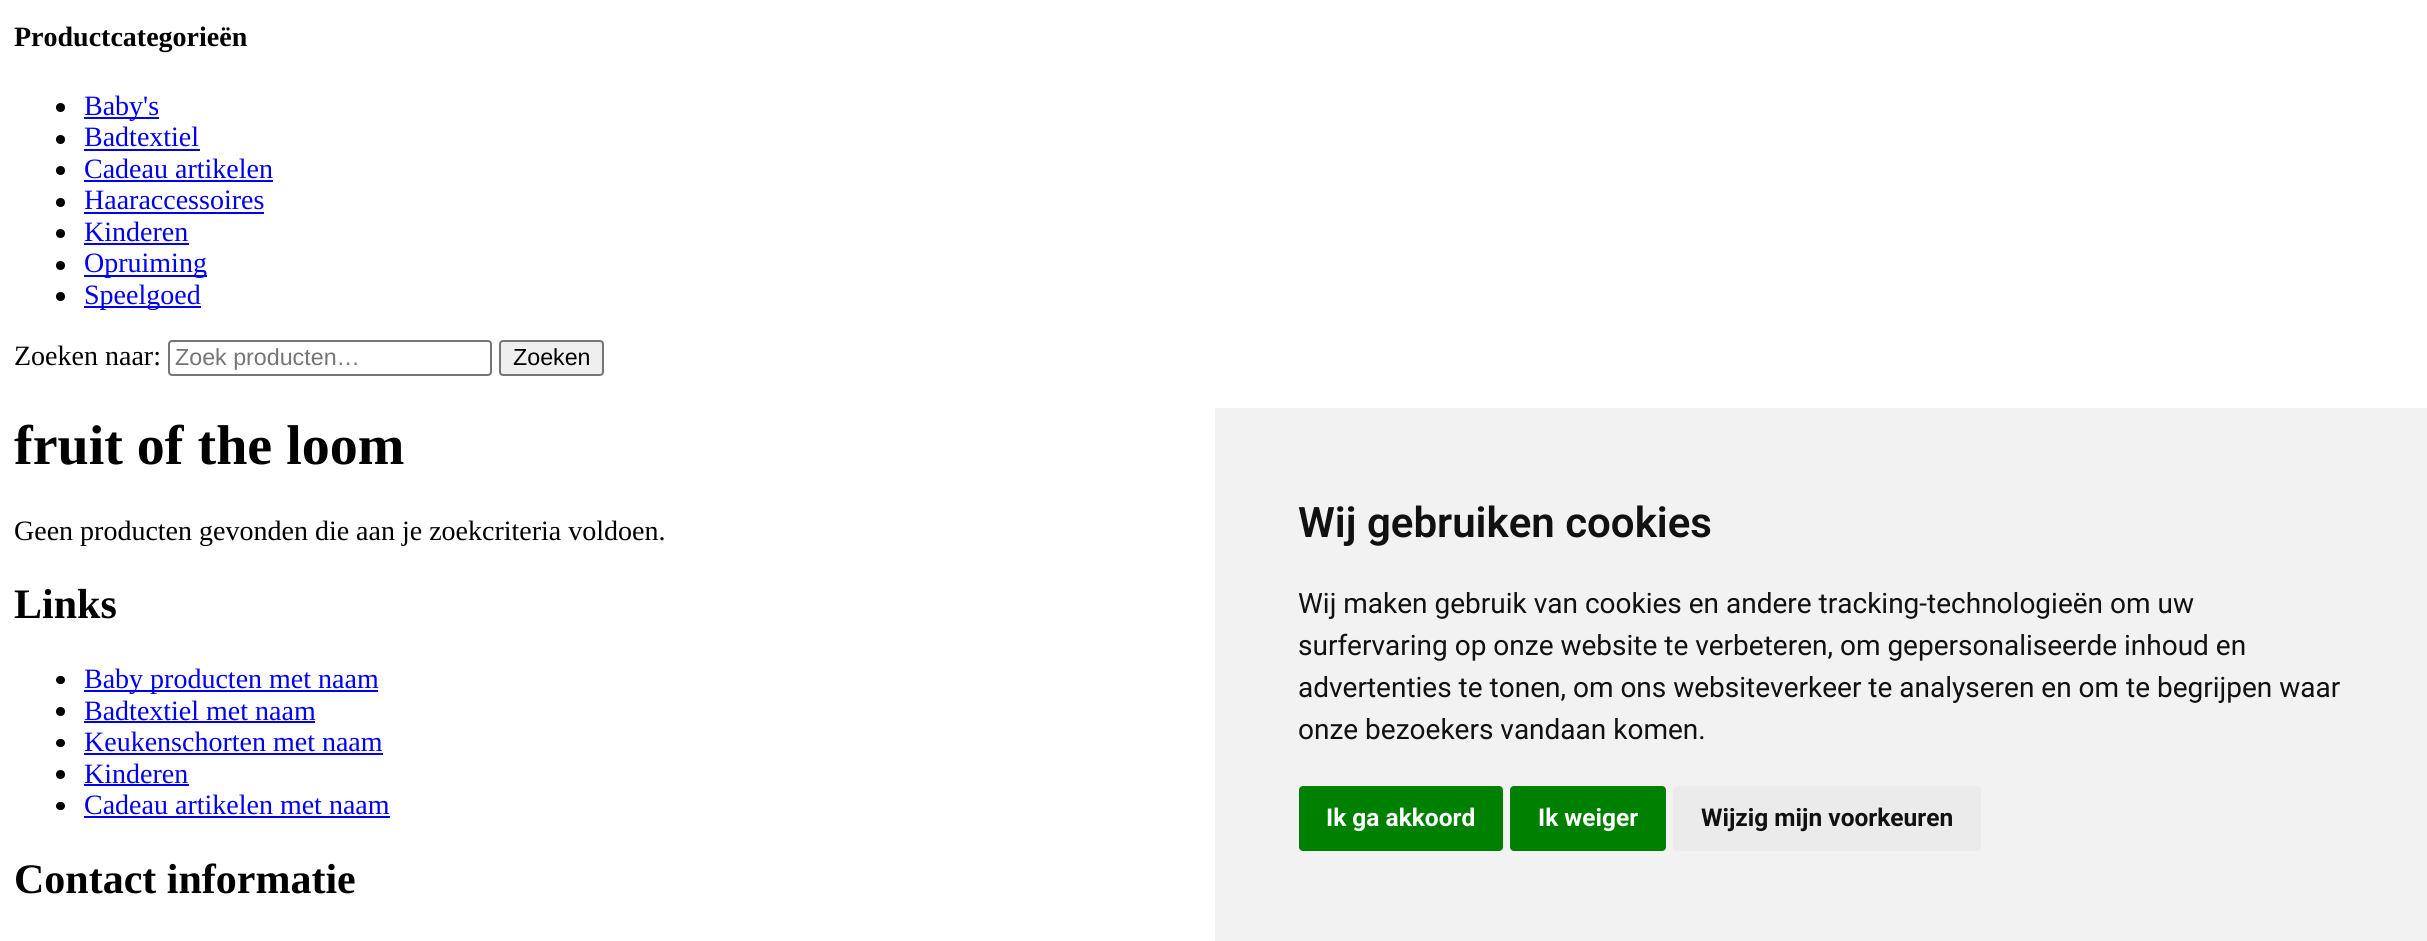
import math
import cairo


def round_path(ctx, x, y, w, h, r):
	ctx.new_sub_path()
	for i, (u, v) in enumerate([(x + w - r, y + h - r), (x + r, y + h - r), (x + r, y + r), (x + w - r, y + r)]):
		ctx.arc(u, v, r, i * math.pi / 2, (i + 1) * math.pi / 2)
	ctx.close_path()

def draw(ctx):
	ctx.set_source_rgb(1, 1, 1)
	ctx.paint()
	ctx.select_font_face('Liberation Serif', cairo.FONT_SLANT_NORMAL, cairo.FONT_WEIGHT_BOLD)
	ctx.set_font_size(28)
	ctx.set_source_rgb(0, 0, 0)
	ctx.move_to(14, 46)
	ctx.show_text('Productcategorieën')
	ctx.new_path()
	ctx.arc(60.5, 107.5, 4.5, 0, 2 * math.pi)
	ctx.fill()
	ctx.set_source_rgb(0, 0, 0.933)
	ctx.rectangle(84, 117, 75, 2)
	ctx.fill()
	ctx.select_font_face('Liberation Serif')
	ctx.move_to(84, 115)
	ctx.show_text('Baby\'s')
	ctx.set_source_rgb(0, 0, 0)
	ctx.new_path()
	ctx.arc(60.5, 139.5, 4.5, 0, 2 * math.pi)
	ctx.fill()
	ctx.set_source_rgb(0, 0, 0.933)
	ctx.move_to(84, 146)
	ctx.show_text('Badtextiel')
	ctx.rectangle(84, 149, 116, 2)
	ctx.fill()
	ctx.set_source_rgb(0, 0, 0)
	ctx.arc(60.5, 170.5, 4.5, 0, 2 * math.pi)
	ctx.fill()
	ctx.set_source_rgb(0, 0, 0.933)
	ctx.move_to(84, 178)
	ctx.show_text('Cadeau artikelen')
	ctx.rectangle(84, 180, 189, 2)
	ctx.fill()
	ctx.set_source_rgb(0, 0, 0)
	ctx.arc(60.5, 202.5, 4.5, 0, 2 * math.pi)
	ctx.fill()
	ctx.set_source_rgb(0, 0, 0.933)
	ctx.move_to(84, 209)
	ctx.show_text('Haaraccessoires')
	ctx.rectangle(84, 212, 180, 2)
	ctx.fill()
	ctx.set_source_rgb(0, 0, 0)
	ctx.arc(60.5, 233.5, 4.5, 0, 2 * math.pi)
	ctx.fill()
	ctx.set_source_rgb(0, 0, 0.933)
	ctx.move_to(84, 241)
	ctx.show_text('Kinderen')
	ctx.rectangle(84, 243, 105, 2)
	ctx.fill()
	ctx.set_source_rgb(0, 0, 0)
	ctx.arc(60.5, 265.5, 4.5, 0, 2 * math.pi)
	ctx.fill()
	ctx.set_source_rgb(0, 0, 0.933)
	ctx.rectangle(84, 275, 123, 2)
	ctx.fill()
	ctx.move_to(84, 272)
	ctx.show_text('Opruiming')
	ctx.set_source_rgb(0, 0, 0)
	ctx.new_path()
	ctx.arc(60.5, 296.5, 4.5, 0, 2 * math.pi)
	ctx.fill()
	ctx.set_source_rgb(0, 0, 0.933)
	ctx.rectangle(84, 306, 117, 2)
	ctx.fill()
	ctx.move_to(84, 304)
	ctx.show_text('Speelgoed')
	ctx.set_source_rgb(0, 0, 0)
	ctx.move_to(14, 365)
	ctx.show_text('Zoeken naar:')
	round_path(ctx, 169, 341, 322, 34, 3)
	ctx.set_source_rgb(0.463, 0.463, 0.463)
	ctx.stroke()
	ctx.select_font_face('Liberation Sans')
	ctx.set_font_size(23.25)
	ctx.set_source_rgb(0.459, 0.459, 0.459)
	ctx.move_to(175, 365)
	ctx.show_text('Zoek producten…')
	ctx.set_source_rgb(0.937, 0.937, 0.937)
	round_path(ctx, 500, 341, 103, 34, 3)
	ctx.fill_preserve()
	ctx.set_source_rgb(0.463, 0.463, 0.463)
	ctx.stroke()
	ctx.set_source_rgb(0, 0, 0)
	ctx.move_to(513, 365)
	ctx.show_text('Zoeken')
	ctx.select_font_face('Liberation Serif', cairo.FONT_SLANT_NORMAL, cairo.FONT_WEIGHT_BOLD)
	ctx.set_font_size(56)
	ctx.move_to(14, 464)
	ctx.show_text('fruit of the loom')
	ctx.select_font_face('Liberation Serif')
	ctx.set_font_size(28)
	ctx.move_to(14, 540)
	ctx.show_text('Geen producten gevonden die aan je zoekcriteria voldoen.')
	ctx.select_font_face('Liberation Serif', cairo.FONT_SLANT_NORMAL, cairo.FONT_WEIGHT_BOLD)
	ctx.set_font_size(42)
	ctx.move_to(14, 618)
	ctx.show_text('Links')
	round_path(ctx, 56, 676, 9, 8, 4)
	ctx.fill()
	ctx.set_source_rgb(0, 0, 0.933)
	ctx.rectangle(84, 690, 294, 2)
	ctx.fill()
	ctx.select_font_face('Liberation Serif')
	ctx.set_font_size(28)
	ctx.move_to(84, 688)
	ctx.show_text('Baby producten met naam')
	ctx.set_source_rgb(0, 0, 0)
	ctx.new_path()
	ctx.arc(60.5, 711.5, 4.5, 0, 2 * math.pi)
	ctx.fill()
	ctx.set_source_rgb(0, 0, 0.933)
	ctx.move_to(84, 720)
	ctx.show_text('Badtextiel met naam')
	ctx.rectangle(84, 721, 231, 2)
	ctx.fill()
	ctx.set_source_rgb(0, 0, 0)
	round_path(ctx, 56, 739, 9, 8, 4)
	ctx.fill()
	ctx.set_source_rgb(0, 0, 0.933)
	ctx.move_to(84, 751)
	ctx.show_text('Keukenschorten met naam')
	ctx.rectangle(84, 753, 299, 2)
	ctx.fill()
	ctx.set_source_rgb(0, 0, 0)
	ctx.arc(60.5, 774.5, 4.5, 0, 2 * math.pi)
	ctx.fill()
	ctx.set_source_rgb(0, 0, 0.933)
	ctx.move_to(84, 783)
	ctx.show_text('Kinderen')
	ctx.rectangle(84, 784, 105, 2)
	ctx.fill()
	ctx.set_source_rgb(0, 0, 0)
	round_path(ctx, 56, 802, 9, 8, 4)
	ctx.fill()
	ctx.set_source_rgb(0, 0, 0.933)
	ctx.move_to(84, 814)
	ctx.show_text('Cadeau artikelen met naam')
	ctx.rectangle(84, 816, 306, 2)
	ctx.fill()
	ctx.select_font_face('Liberation Serif', cairo.FONT_SLANT_NORMAL, cairo.FONT_WEIGHT_BOLD)
	ctx.set_font_size(42)
	ctx.set_source_rgb(0, 0, 0)
	ctx.move_to(14, 893)
	ctx.show_text('Contact informatie')
	ctx.set_source_rgb(0.949, 0.949, 0.949)
	ctx.rectangle(1215, 408, 1212, 533)
	ctx.fill()
	ctx.select_font_face('Roboto SemiBold')
	ctx.set_source_rgb(0.067, 0.067, 0.067)
	ctx.move_to(1298, 537)
	ctx.show_text('Wij gebruiken cookies')
	ctx.select_font_face('Roboto')
	ctx.set_font_size(28)
	for x, y, s in [
		(1298, 613, 'Wij maken gebruik van cookies en andere tracking-technologieën om uw'),
		(1298, 655, 'surfervaring op onze website te verbeteren, om gepersonaliseerde inhoud en'),
		(1298, 697, 'advertenties te tonen, om ons websiteverkeer te analyseren en om te begrijpen waar'),
		(1298, 739, 'onze bezoekers vandaan komen.'),
	]:
		ctx.move_to(x, y)
		ctx.show_text(s)
	ctx.set_source_rgb(0, 0.502, 0)
	round_path(ctx, 1299, 786, 204, 65, 4)
	ctx.fill()
	ctx.select_font_face('Roboto', cairo.FONT_SLANT_NORMAL, cairo.FONT_WEIGHT_BOLD)
	ctx.set_font_size(24.5)
	ctx.set_source_rgb(1, 1, 1)
	ctx.move_to(1326, 826)
	ctx.show_text('Ik ga akkoord')
	ctx.set_source_rgb(0, 0.502, 0)
	round_path(ctx, 1510, 786, 156, 65, 4)
	ctx.fill()
	ctx.set_source_rgb(1, 1, 1)
	ctx.move_to(1538, 826)
	ctx.show_text('Ik weiger')
	ctx.set_source_rgb(0.918, 0.918, 0.918)
	round_path(ctx, 1673, 786, 308, 65, 4)
	ctx.fill()
	ctx.set_source_rgb(0.067, 0.067, 0.067)
	ctx.move_to(1701, 826)
	ctx.show_text('Wijzig mijn voorkeuren')


surface = cairo.ImageSurface(cairo.FORMAT_RGB24, 2427, 941)
ctx = cairo.Context(surface)
options = cairo.FontOptions()
options.set_hint_metrics(cairo.HINT_METRICS_OFF)
options.set_hint_style(cairo.HINT_STYLE_NONE)
ctx.set_font_options(options)
ctx.set_miter_limit(4)
draw(ctx)
surface.write_to_png('image.png')
